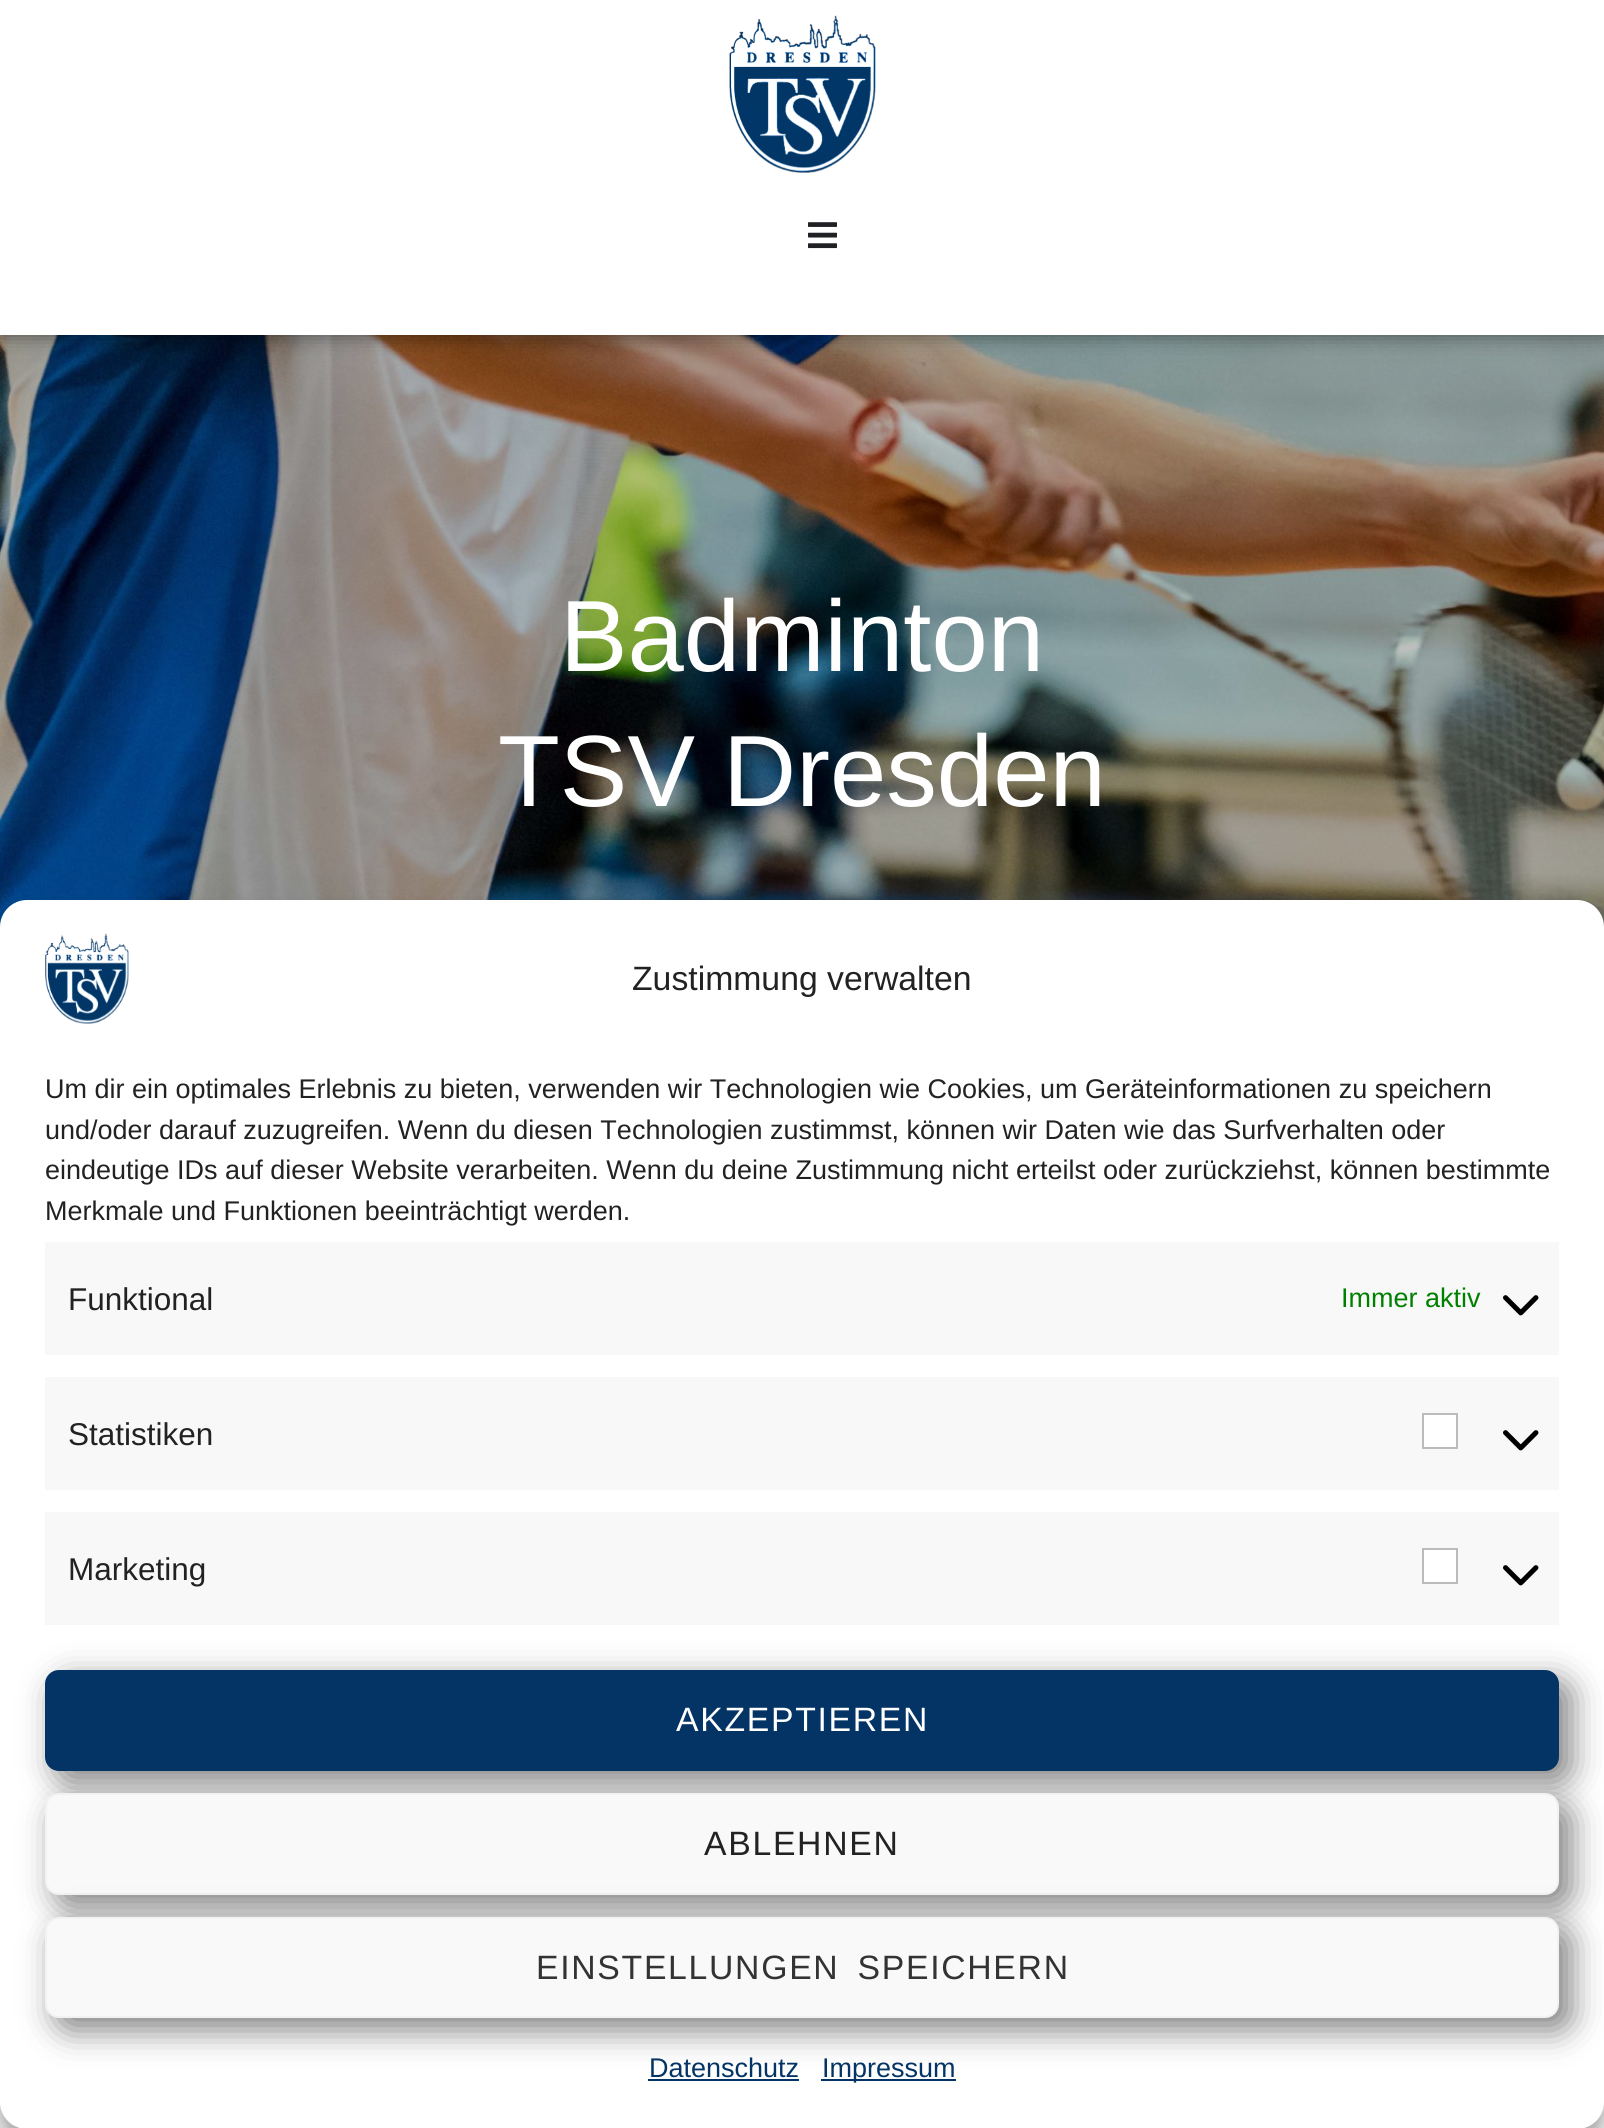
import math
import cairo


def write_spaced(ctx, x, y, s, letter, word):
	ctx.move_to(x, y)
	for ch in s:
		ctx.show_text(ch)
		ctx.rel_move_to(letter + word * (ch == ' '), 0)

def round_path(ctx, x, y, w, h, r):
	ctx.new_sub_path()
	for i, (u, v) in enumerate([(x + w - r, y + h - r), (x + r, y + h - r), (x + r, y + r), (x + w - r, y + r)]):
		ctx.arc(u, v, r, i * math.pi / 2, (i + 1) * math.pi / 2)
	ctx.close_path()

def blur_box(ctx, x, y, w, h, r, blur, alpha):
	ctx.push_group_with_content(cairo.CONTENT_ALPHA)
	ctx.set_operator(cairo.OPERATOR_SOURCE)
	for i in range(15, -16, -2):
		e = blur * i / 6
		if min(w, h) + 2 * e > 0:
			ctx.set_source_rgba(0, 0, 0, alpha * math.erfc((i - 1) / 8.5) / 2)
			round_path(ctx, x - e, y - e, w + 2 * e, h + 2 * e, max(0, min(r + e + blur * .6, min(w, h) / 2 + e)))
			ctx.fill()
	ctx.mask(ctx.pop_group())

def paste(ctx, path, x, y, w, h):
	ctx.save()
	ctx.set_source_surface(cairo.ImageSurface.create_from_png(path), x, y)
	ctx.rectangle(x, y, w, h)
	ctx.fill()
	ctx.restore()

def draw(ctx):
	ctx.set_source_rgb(1, 1, 1)
	ctx.paint()
	paste(ctx, 'media/3.png', 0, 335, 1604, 592)
	ctx.set_source_rgb(0, 0, 0)
	blur_box(ctx, 0, 0, 1604, 335, 0, 11, 0.5)
	ctx.set_source_rgb(1, 1, 1)
	ctx.rectangle(0, 0, 1604, 335)
	ctx.fill()
	paste(ctx, 'media/1.png', 729, 15, 147, 158)
	paste(ctx, 'media/2.png', 808, 222, 29, 27)
	ctx.select_font_face('Liberation Sans')
	ctx.set_font_size(101.25)
	ctx.move_to(560, 671)
	ctx.show_text('Badminton')
	ctx.move_to(498, 806)
	ctx.show_text('TSV Dresden')
	ctx.set_source_rgb(0, 0, 0)
	blur_box(ctx, 0, 914, 1604, 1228, 27, 7, 0.23)
	blur_box(ctx, 0, 923, 1604, 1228, 27, 22.5, 0.19)
	ctx.set_source_rgb(0.502, 0.502, 0.502)
	blur_box(ctx, 1447, 1962, 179, 135, 5, 5.5, 1)
	ctx.set_source_rgb(1, 1, 1)
	round_path(ctx, 0, 900, 1604, 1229, 27)
	ctx.fill()
	paste(ctx, 'media/4.png', 45, 933, 84, 91)
	ctx.set_font_size(33.75)
	ctx.set_source_rgb(0.133, 0.133, 0.133)
	ctx.move_to(632, 990)
	ctx.show_text('Zustimmung verwalten')
	ctx.set_font_size(27)
	for x, y, s in [
		(45, 1098, 'Um dir ein optimales Erlebnis zu bieten, verwenden wir Technologien wie Cookies, um Geräteinformationen zu speichern'),
		(45, 1139, 'und/oder darauf zuzugreifen. Wenn du diesen Technologien zustimmst, können wir Daten wie das Surfverhalten oder'),
		(45, 1179, 'eindeutige IDs auf dieser Website verarbeiten. Wenn du deine Zustimmung nicht erteilst oder zurückziehst, können bestimmte'),
		(45, 1220, 'Merkmale und Funktionen beeinträchtigt werden.'),
	]:
		ctx.move_to(x, y)
		ctx.show_text(s)
	ctx.set_source_rgb(0.969, 0.969, 0.969)
	ctx.rectangle(45, 1242, 1514, 113)
	ctx.fill()
	ctx.set_font_size(31.5)
	ctx.set_source_rgb(0.133, 0.133, 0.133)
	ctx.move_to(68, 1310)
	ctx.show_text('Funktional')
	ctx.set_font_size(27)
	ctx.set_source_rgb(0, 0.502, 0)
	ctx.move_to(1341, 1307)
	ctx.show_text('Immer aktiv')
	paste(ctx, 'media/5.png', 1503, 1295, 36, 21)
	ctx.set_source_rgb(0.969, 0.969, 0.969)
	ctx.rectangle(45, 1377, 1514, 113)
	ctx.fill()
	ctx.set_font_size(31.5)
	ctx.set_source_rgb(0.133, 0.133, 0.133)
	ctx.move_to(68, 1445)
	ctx.show_text('Statistiken')
	ctx.set_source_rgb(1, 1, 1)
	ctx.rectangle(1423, 1414, 34, 34)
	ctx.fill_preserve()
	ctx.set_source_rgb(0.733, 0.733, 0.733)
	ctx.stroke()
	paste(ctx, 'media/5.png', 1503, 1430, 36, 21)
	ctx.set_source_rgb(0.969, 0.969, 0.969)
	ctx.rectangle(45, 1512, 1514, 113)
	ctx.fill()
	ctx.set_source_rgb(0.133, 0.133, 0.133)
	ctx.move_to(68, 1580)
	ctx.show_text('Marketing')
	ctx.set_source_rgb(1, 1, 1)
	ctx.rectangle(1423, 1549, 34, 34)
	ctx.fill_preserve()
	ctx.set_source_rgb(0.733, 0.733, 0.733)
	ctx.stroke()
	paste(ctx, 'media/5.png', 1503, 1565, 36, 21)
	ctx.set_source_rgb(0, 0, 0)
	blur_box(ctx, 56, 1681, 1515, 101, 14, 17, 0.5)
	ctx.set_source_rgb(0.016, 0.204, 0.396)
	round_path(ctx, 46, 1671, 1512, 99, 13)
	ctx.fill_preserve()
	ctx.stroke()
	ctx.set_font_size(33.75)
	ctx.set_source_rgb(1, 1, 1)
	write_spaced(ctx, 676, 1731, 'AKZEPTIEREN', 1.7, 0)
	ctx.set_source_rgb(0, 0, 0)
	blur_box(ctx, 56, 1805, 1515, 101, 14, 17, 0.5)
	ctx.set_source_rgb(0.976, 0.976, 0.976)
	round_path(ctx, 46, 1794, 1512, 100, 13)
	ctx.fill_preserve()
	ctx.set_source_rgb(0.949, 0.949, 0.949)
	ctx.stroke()
	ctx.set_source_rgb(0.133, 0.133, 0.133)
	write_spaced(ctx, 704, 1855, 'ABLEHNEN', 1.7, 0)
	ctx.set_source_rgb(0, 0, 0)
	blur_box(ctx, 56, 1928, 1515, 102, 14, 17, 0.5)
	ctx.set_source_rgb(0.976, 0.976, 0.976)
	round_path(ctx, 46, 1918, 1512, 99, 13)
	ctx.fill_preserve()
	ctx.set_source_rgb(0.949, 0.949, 0.949)
	ctx.stroke()
	ctx.set_source_rgb(0.2, 0.2, 0.2)
	write_spaced(ctx, 536, 1979, 'EINSTELLUNGEN SPEICHERN', 1.7, 7)
	ctx.set_font_size(27)
	ctx.set_source_rgb(0.016, 0.204, 0.396)
	ctx.move_to(649, 2077)
	ctx.show_text('Datenschutz')
	ctx.rectangle(648, 2079, 151, 2)
	ctx.fill()
	ctx.rectangle(821, 2079, 135, 2)
	ctx.fill()
	ctx.move_to(822, 2077)
	ctx.show_text('Impressum')


surface = cairo.ImageSurface(cairo.FORMAT_RGB24, 1604, 2128)
ctx = cairo.Context(surface)
options = cairo.FontOptions()
options.set_hint_metrics(cairo.HINT_METRICS_OFF)
options.set_hint_style(cairo.HINT_STYLE_NONE)
ctx.set_font_options(options)
ctx.set_miter_limit(4)
draw(ctx)
surface.write_to_png('image.png')
